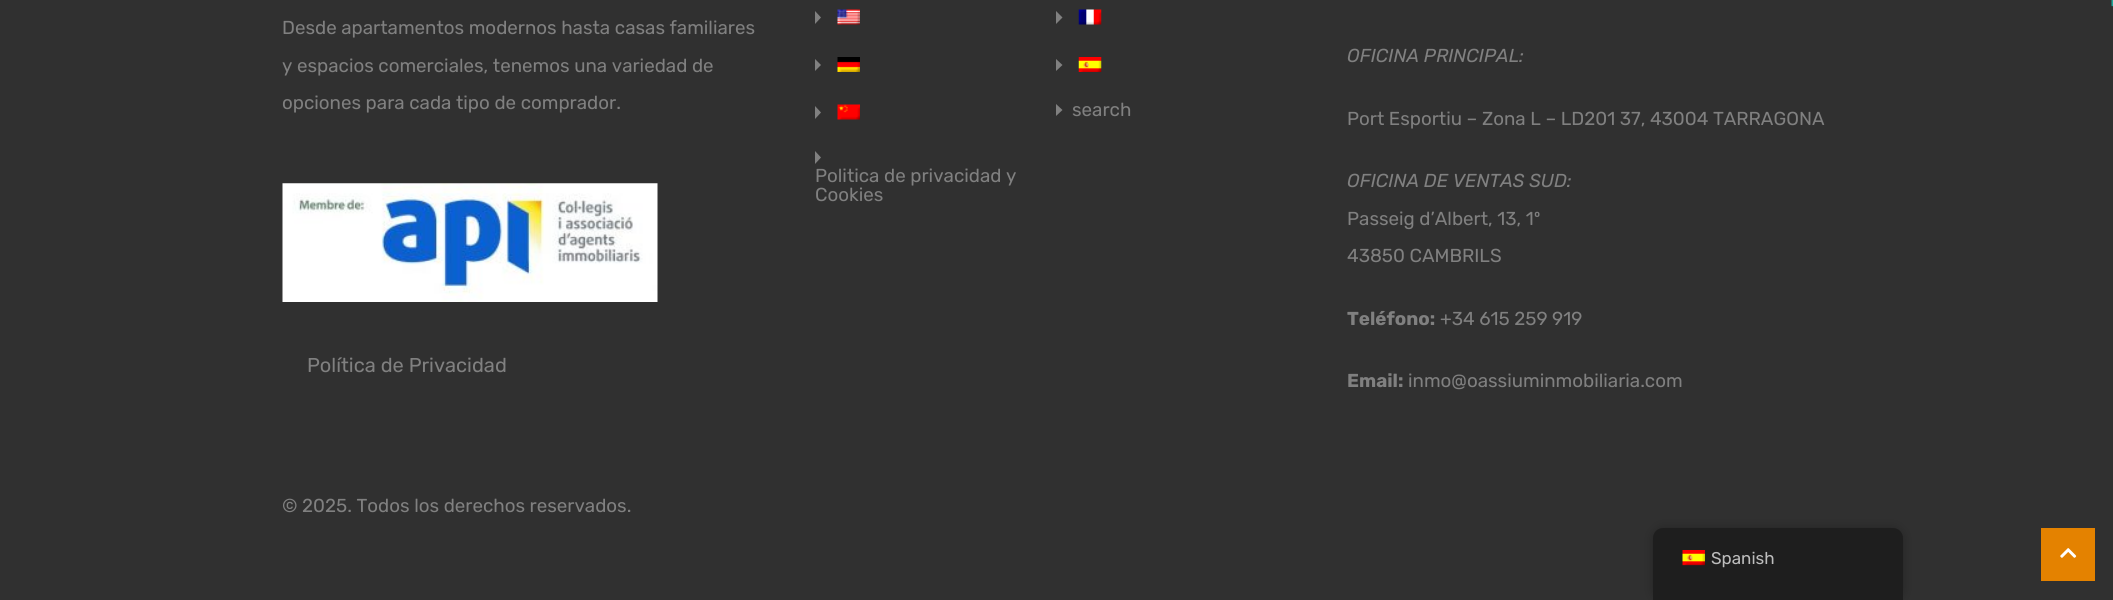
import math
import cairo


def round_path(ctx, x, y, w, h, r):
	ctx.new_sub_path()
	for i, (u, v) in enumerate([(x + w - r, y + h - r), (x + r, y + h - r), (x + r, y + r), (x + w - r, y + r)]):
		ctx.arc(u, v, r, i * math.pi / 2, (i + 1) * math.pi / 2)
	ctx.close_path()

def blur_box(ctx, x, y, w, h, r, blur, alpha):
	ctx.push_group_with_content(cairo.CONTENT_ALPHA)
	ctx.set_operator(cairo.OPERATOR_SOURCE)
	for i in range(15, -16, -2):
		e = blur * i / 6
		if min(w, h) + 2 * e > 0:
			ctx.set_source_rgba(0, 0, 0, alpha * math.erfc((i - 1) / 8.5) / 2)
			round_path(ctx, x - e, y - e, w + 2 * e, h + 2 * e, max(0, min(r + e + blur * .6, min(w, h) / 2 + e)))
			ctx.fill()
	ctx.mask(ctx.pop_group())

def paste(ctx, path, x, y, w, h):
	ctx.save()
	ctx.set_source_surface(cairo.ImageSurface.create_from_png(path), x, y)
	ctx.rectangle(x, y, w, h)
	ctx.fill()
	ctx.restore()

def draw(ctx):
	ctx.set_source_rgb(0.188, 0.188, 0.188)
	ctx.paint()
	ctx.new_path()
	ctx.move_to(2111.5, 3)
	ctx.line_to(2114, 3)
	ctx.set_source_rgb(0.118, 0.651, 0.604)
	ctx.set_line_width(6.3)
	ctx.stroke()
	ctx.select_font_face('Rubik')
	ctx.set_font_size(18.75)
	ctx.set_source_rgb(0.502, 0.502, 0.502)
	for x, y, s in [
		(282, 34, 'Desde apartamentos modernos hasta casas familiares'),
		(282, 72, 'y espacios comerciales, tenemos una variedad de'),
		(282, 109, 'opciones para cada tipo de comprador.'),
	]:
		ctx.move_to(x, y)
		ctx.show_text(s)
	paste(ctx, 'media/1.png', 282, 183, 376, 119)
	ctx.set_font_size(20)
	ctx.move_to(307, 372)
	ctx.show_text('Política de Privacidad')
	ctx.new_path()
	ctx.move_to(815, 24)
	ctx.line_to(815, 11)
	ctx.line_to(821, 17.5)
	ctx.close_path()
	ctx.fill()
	paste(ctx, 'media/2.png', 837, 9, 23, 16)
	ctx.new_path()
	ctx.move_to(1056, 24)
	ctx.line_to(1056, 11)
	ctx.line_to(1062.5, 17.5)
	ctx.close_path()
	ctx.fill()
	paste(ctx, 'media/3.png', 1078, 9, 24, 16)
	ctx.new_path()
	ctx.move_to(815, 71)
	ctx.line_to(815, 59)
	ctx.line_to(821, 65)
	ctx.close_path()
	ctx.fill()
	paste(ctx, 'media/4.png', 837, 57, 23, 15)
	ctx.new_path()
	ctx.move_to(1056, 71)
	ctx.line_to(1056, 59)
	ctx.line_to(1062.5, 65)
	ctx.close_path()
	ctx.fill()
	paste(ctx, 'media/5.png', 1078, 57, 24, 15)
	ctx.new_path()
	ctx.move_to(815, 119)
	ctx.line_to(815, 106)
	ctx.line_to(821, 112.5)
	ctx.close_path()
	ctx.fill()
	paste(ctx, 'media/6.png', 837, 104, 23, 16)
	ctx.new_path()
	ctx.move_to(1056, 116)
	ctx.line_to(1056, 104)
	ctx.line_to(1062.5, 110)
	ctx.close_path()
	ctx.fill()
	ctx.set_font_size(18.75)
	ctx.move_to(1072, 116)
	ctx.show_text('search')
	ctx.new_path()
	ctx.move_to(815, 164)
	ctx.line_to(815, 151)
	ctx.line_to(821, 157.5)
	ctx.close_path()
	ctx.fill()
	ctx.move_to(815, 182)
	ctx.show_text('Politica de privacidad y')
	ctx.move_to(815, 201)
	ctx.show_text('Cookies')
	ctx.select_font_face('Rubik', cairo.FONT_SLANT_ITALIC)
	ctx.move_to(1347, 62)
	ctx.show_text('OFICINA PRINCIPAL:')
	ctx.select_font_face('Rubik')
	ctx.move_to(1347, 125)
	ctx.show_text('Port Esportiu – Zona L – LD201 37, 43004 TARRAGONA')
	ctx.select_font_face('Rubik', cairo.FONT_SLANT_ITALIC)
	ctx.move_to(1347, 187)
	ctx.show_text('OFICINA DE VENTAS SUD:')
	ctx.select_font_face('Rubik')
	ctx.move_to(1347, 225)
	ctx.show_text('Passeig d’Albert, 13, 1º')
	ctx.move_to(1347, 262)
	ctx.show_text('43850 CAMBRILS')
	ctx.select_font_face('Rubik', cairo.FONT_SLANT_NORMAL, cairo.FONT_WEIGHT_BOLD)
	ctx.move_to(1347, 325)
	ctx.show_text('Teléfono:')
	ctx.select_font_face('Rubik')
	ctx.move_to(1440, 325)
	ctx.show_text('+34 615 259 919')
	ctx.select_font_face('Rubik', cairo.FONT_SLANT_NORMAL, cairo.FONT_WEIGHT_BOLD)
	ctx.move_to(1347, 387)
	ctx.show_text('Email:')
	ctx.select_font_face('Rubik')
	ctx.move_to(1408, 387)
	ctx.show_text('inmo@oassiuminmobiliaria.com')
	ctx.move_to(282, 512)
	ctx.show_text('© 2025. Todos los derechos reservados.')
	ctx.set_source_rgb(0, 0, 0)
	blur_box(ctx, 1653, 528, 250, 72, 10, 5, 0.25)
	ctx.set_source_rgb(0.118, 0.118, 0.118)
	ctx.new_path()
	ctx.move_to(1663, 528)
	ctx.line_to(1893, 528)
	ctx.curve_to(1898.5, 528, 1903, 532.5, 1903, 538)
	ctx.line_to(1903, 600)
	ctx.line_to(1653, 600)
	ctx.line_to(1653, 538)
	ctx.curve_to(1653, 532.5, 1657.5, 528, 1663, 528)
	ctx.close_path()
	ctx.fill()
	paste(ctx, 'media/7.png', 1682, 550, 23, 16)
	ctx.set_font_size(17)
	ctx.set_source_rgb(0.741, 0.741, 0.741)
	ctx.move_to(1711, 564)
	ctx.show_text('Spanish')
	ctx.set_source_rgb(0.894, 0.51, 0)
	ctx.rectangle(2041, 528, 54, 53)
	ctx.fill()
	paste(ctx, 'media/8.png', 2060, 548, 17, 10)


surface = cairo.ImageSurface(cairo.FORMAT_RGB24, 2113, 600)
ctx = cairo.Context(surface)
options = cairo.FontOptions()
options.set_hint_metrics(cairo.HINT_METRICS_OFF)
options.set_hint_style(cairo.HINT_STYLE_NONE)
ctx.set_font_options(options)
ctx.set_miter_limit(4)
draw(ctx)
surface.write_to_png('image.png')
